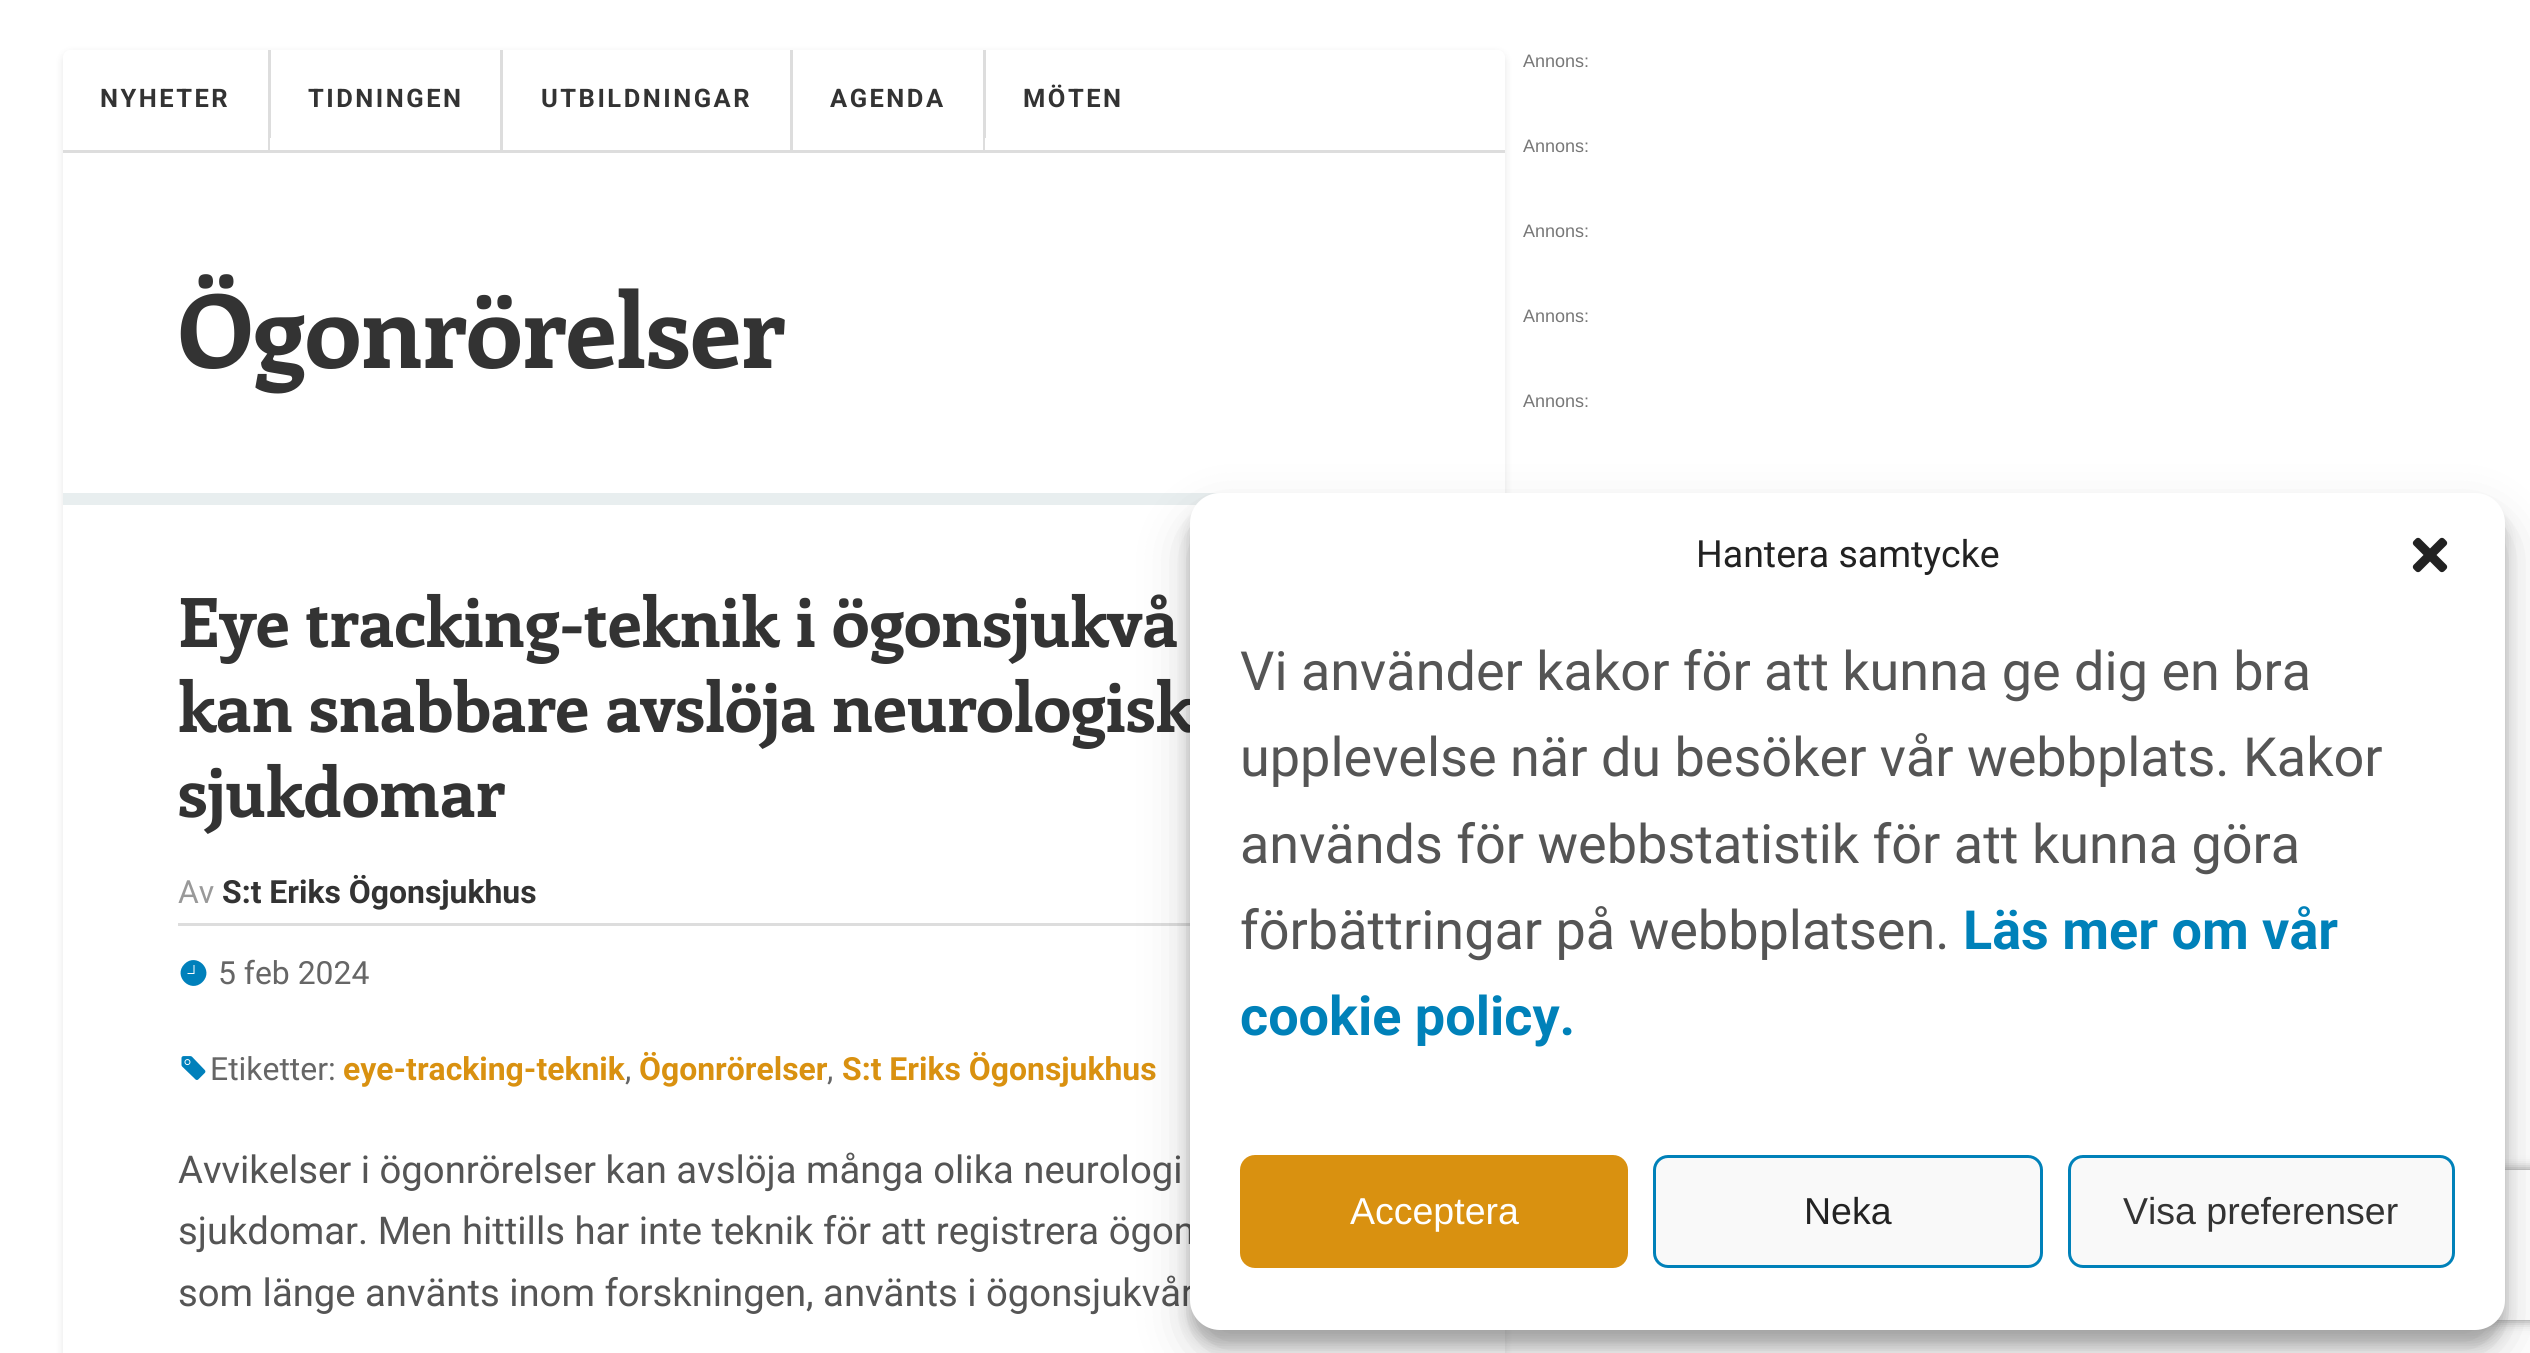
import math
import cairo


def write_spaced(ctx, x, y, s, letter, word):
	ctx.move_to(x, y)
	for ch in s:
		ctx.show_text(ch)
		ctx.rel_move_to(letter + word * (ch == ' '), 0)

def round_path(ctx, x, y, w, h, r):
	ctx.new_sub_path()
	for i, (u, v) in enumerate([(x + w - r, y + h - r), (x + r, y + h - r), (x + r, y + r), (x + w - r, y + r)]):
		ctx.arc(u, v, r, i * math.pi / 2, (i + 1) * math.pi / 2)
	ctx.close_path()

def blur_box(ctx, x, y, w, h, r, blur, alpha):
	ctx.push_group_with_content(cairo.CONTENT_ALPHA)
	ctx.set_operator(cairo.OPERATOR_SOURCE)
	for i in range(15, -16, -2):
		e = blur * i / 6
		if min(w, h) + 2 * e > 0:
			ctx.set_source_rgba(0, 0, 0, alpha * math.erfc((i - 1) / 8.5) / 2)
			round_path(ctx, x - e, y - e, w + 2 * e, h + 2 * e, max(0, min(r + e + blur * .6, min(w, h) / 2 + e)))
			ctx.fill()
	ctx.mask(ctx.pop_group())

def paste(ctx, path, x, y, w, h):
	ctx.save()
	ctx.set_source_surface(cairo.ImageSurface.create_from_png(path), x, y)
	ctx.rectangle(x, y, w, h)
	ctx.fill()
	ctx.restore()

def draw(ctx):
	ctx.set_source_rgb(1, 1, 1)
	ctx.paint()
	ctx.save()
	ctx.set_fill_rule(cairo.FILL_RULE_EVEN_ODD)
	ctx.new_path()
	ctx.move_to(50, 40)
	ctx.line_to(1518, 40)
	ctx.line_to(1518, 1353)
	ctx.line_to(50, 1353)
	ctx.close_path()
	ctx.move_to(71, 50)
	ctx.line_to(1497, 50)
	ctx.curve_to(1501.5, 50, 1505, 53.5, 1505, 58)
	ctx.line_to(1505, 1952)
	ctx.curve_to(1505, 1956.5, 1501.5, 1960, 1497, 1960)
	ctx.line_to(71, 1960)
	ctx.curve_to(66.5, 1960, 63, 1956.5, 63, 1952)
	ctx.line_to(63, 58)
	ctx.curve_to(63, 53.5, 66.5, 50, 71, 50)
	ctx.close_path()
	ctx.clip()
	ctx.set_source_rgb(0, 0, 0)
	blur_box(ctx, 63, 53, 1442, 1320, 8, 4, 0.1)
	ctx.restore()
	ctx.set_source_rgb(0.867, 0.867, 0.867)
	ctx.rectangle(63, 150, 1442, 3)
	ctx.fill()
	ctx.select_font_face('Roboto', cairo.FONT_SLANT_NORMAL, cairo.FONT_WEIGHT_BOLD)
	ctx.set_font_size(25.5)
	ctx.set_source_rgb(0.2, 0.2, 0.2)
	write_spaced(ctx, 100, 107, 'NYHETER', 2.5, 0)
	ctx.set_source_rgb(0.867, 0.867, 0.867)
	ctx.rectangle(268, 50, 3, 100)
	ctx.fill()
	ctx.set_source_rgb(1, 1, 1)
	ctx.rectangle(270, 138, 1, 12)
	ctx.fill()
	ctx.set_source_rgb(0.2, 0.2, 0.2)
	write_spaced(ctx, 308, 107, 'TIDNINGEN', 2.5, 0)
	ctx.set_source_rgb(0.867, 0.867, 0.867)
	ctx.rectangle(500, 50, 3, 100)
	ctx.fill()
	ctx.set_source_rgb(0.2, 0.2, 0.2)
	write_spaced(ctx, 541, 107, 'UTBILDNINGAR', 2.5, 0)
	ctx.set_source_rgb(0.867, 0.867, 0.867)
	ctx.rectangle(790, 50, 3, 100)
	ctx.fill()
	ctx.set_source_rgb(0.2, 0.2, 0.2)
	write_spaced(ctx, 830, 107, 'AGENDA', 2.5, 0)
	ctx.set_source_rgb(0.867, 0.867, 0.867)
	ctx.rectangle(983, 50, 3, 100)
	ctx.fill()
	ctx.set_source_rgb(1, 1, 1)
	ctx.rectangle(985, 138, 1, 12)
	ctx.fill()
	ctx.set_source_rgb(0.2, 0.2, 0.2)
	write_spaced(ctx, 1023, 107, 'MÖTEN', 2.5, 0)
	ctx.select_font_face('Enriqueta', cairo.FONT_SLANT_NORMAL, cairo.FONT_WEIGHT_BOLD)
	ctx.set_font_size(102)
	ctx.move_to(178, 368)
	ctx.show_text('Ögonrörelser')
	ctx.set_source_rgb(0.91, 0.933, 0.937)
	ctx.rectangle(63, 493, 1157, 12)
	ctx.fill()
	ctx.set_font_size(68)
	ctx.set_source_rgb(0.2, 0.2, 0.2)
	for x, y, s in [
		(178, 647, 'Eye tracking-teknik i ögonsjukvå'),
		(178, 732, 'kan snabbare avslöja neurologisk'),
		(178, 817, 'sjukdomar'),
	]:
		ctx.move_to(x, y)
		ctx.show_text(s)
	ctx.set_source_rgb(0.867, 0.867, 0.867)
	ctx.rectangle(178, 923, 1012, 3)
	ctx.fill()
	ctx.select_font_face('Roboto')
	ctx.set_font_size(31.9)
	ctx.set_source_rgb(0.6, 0.6, 0.6)
	ctx.move_to(178, 903)
	ctx.show_text('Av')
	ctx.select_font_face('Roboto', cairo.FONT_SLANT_NORMAL, cairo.FONT_WEIGHT_BOLD)
	ctx.set_source_rgb(0.2, 0.2, 0.2)
	ctx.move_to(222, 903)
	ctx.show_text('S:t Eriks Ögonsjukhus')
	ctx.set_source_rgb(0, 0.502, 0.733)
	ctx.new_path()
	ctx.move_to(184.5, 964)
	ctx.curve_to(196.5, 952, 214.5, 970, 202.5, 982)
	ctx.curve_to(190.5, 994, 172.5, 976, 184.5, 964)
	ctx.close_path()
	ctx.move_to(194.5, 974)
	ctx.line_to(194.5, 965)
	ctx.line_to(193.5, 965)
	ctx.line_to(193.5, 973)
	ctx.line_to(187.5, 973)
	ctx.line_to(187.5, 974)
	ctx.close_path()
	ctx.fill()
	ctx.select_font_face('Roboto')
	ctx.set_source_rgb(0.4, 0.4, 0.4)
	ctx.move_to(218, 984)
	ctx.show_text('5 feb 2024')
	paste(ctx, 'media/1.png', 181, 1056, 25, 24)
	ctx.move_to(210, 1080)
	ctx.show_text('Etiketter:')
	ctx.select_font_face('Roboto', cairo.FONT_SLANT_NORMAL, cairo.FONT_WEIGHT_BOLD)
	ctx.set_source_rgb(0.851, 0.569, 0.063)
	ctx.move_to(343, 1080)
	ctx.show_text('eye-tracking-teknik')
	ctx.select_font_face('Roboto')
	ctx.set_source_rgb(0.4, 0.4, 0.4)
	ctx.move_to(625, 1080)
	ctx.show_text(',')
	ctx.select_font_face('Roboto', cairo.FONT_SLANT_NORMAL, cairo.FONT_WEIGHT_BOLD)
	ctx.set_source_rgb(0.851, 0.569, 0.063)
	ctx.move_to(639, 1080)
	ctx.show_text('Ögonrörelser')
	ctx.select_font_face('Roboto')
	ctx.set_source_rgb(0.4, 0.4, 0.4)
	ctx.move_to(827, 1080)
	ctx.show_text(',')
	ctx.select_font_face('Roboto', cairo.FONT_SLANT_NORMAL, cairo.FONT_WEIGHT_BOLD)
	ctx.set_source_rgb(0.851, 0.569, 0.063)
	ctx.move_to(842, 1080)
	ctx.show_text('S:t Eriks Ögonsjukhus')
	ctx.select_font_face('Roboto')
	ctx.set_font_size(38.25)
	ctx.set_source_rgb(0.333, 0.333, 0.333)
	for x, y, s in [
		(178, 1183, 'Avvikelser i ögonrörelser kan avslöja många olika neurologi'),
		(178, 1244, 'sjukdomar. Men hittills har inte teknik för att registrera ögon'),
		(178, 1306, 'som länge använts inom forskningen, använts i ögonsjukvår'),
	]:
		ctx.move_to(x, y)
		ctx.show_text(s)
	ctx.select_font_face('Liberation Sans')
	ctx.set_font_size(18)
	ctx.set_source_rgb(0.467, 0.467, 0.467)
	for x, y, s in [
		(1523, 67, 'Annons:'),
		(1523, 152, 'Annons:'),
		(1523, 237, 'Annons:'),
		(1523, 322, 'Annons:'),
		(1523, 407, 'Annons:'),
	]:
		ctx.move_to(x, y)
		ctx.show_text(s)
	ctx.set_source_rgb(0, 0, 0)
	blur_box(ctx, 1190, 508, 1315, 837, 30, 7.5, 0.23)
	blur_box(ctx, 1190, 518, 1315, 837, 30, 25, 0.19)
	ctx.save()
	ctx.set_fill_rule(cairo.FILL_RULE_EVEN_ODD)
	ctx.new_path()
	ctx.move_to(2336, 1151)
	ctx.line_to(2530, 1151)
	ctx.line_to(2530, 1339)
	ctx.line_to(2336, 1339)
	ctx.close_path()
	ctx.move_to(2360, 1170)
	ctx.line_to(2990, 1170)
	ctx.curve_to(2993, 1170, 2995, 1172, 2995, 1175)
	ctx.line_to(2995, 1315)
	ctx.curve_to(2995, 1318, 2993, 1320, 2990, 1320)
	ctx.line_to(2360, 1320)
	ctx.curve_to(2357, 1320, 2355, 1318, 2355, 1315)
	ctx.line_to(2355, 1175)
	ctx.curve_to(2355, 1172, 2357, 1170, 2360, 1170)
	ctx.close_path()
	ctx.clip()
	ctx.set_source_rgb(0.502, 0.502, 0.502)
	blur_box(ctx, 2355, 1170, 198, 150, 5, 6, 1)
	ctx.restore()
	ctx.set_source_rgb(1, 1, 1)
	round_path(ctx, 1190, 493, 1315, 837, 30)
	ctx.fill()
	ctx.select_font_face('Roboto')
	ctx.set_font_size(37.5)
	ctx.set_source_rgb(0.133, 0.133, 0.133)
	ctx.move_to(1696, 567)
	ctx.show_text('Hantera samtycke')
	paste(ctx, 'media/2.png', 2412, 537, 36, 36)
	ctx.set_font_size(54)
	ctx.set_source_rgb(0.333, 0.333, 0.333)
	for x, y, s in [
		(1240, 690, 'Vi använder kakor för att kunna ge dig en bra'),
		(1240, 776, 'upplevelse när du besöker vår webbplats. Kakor'),
		(1240, 863, 'används för webbstatistik för att kunna göra'),
		(1240, 949, 'förbättringar på webbplatsen.'),
	]:
		ctx.move_to(x, y)
		ctx.show_text(s)
	ctx.select_font_face('Roboto', cairo.FONT_SLANT_NORMAL, cairo.FONT_WEIGHT_BOLD)
	ctx.set_source_rgb(0, 0.506, 0.725)
	ctx.move_to(1963, 949)
	ctx.show_text('Läs mer om vår')
	ctx.move_to(1240, 1035)
	ctx.show_text('cookie policy.')
	ctx.set_source_rgb(0.851, 0.569, 0.063)
	round_path(ctx, 1241.5, 1156.5, 385, 110, 13.5)
	ctx.fill_preserve()
	ctx.set_line_width(3)
	ctx.stroke()
	ctx.select_font_face('Liberation Sans')
	ctx.set_font_size(37.5)
	ctx.set_source_rgb(1, 1, 1)
	ctx.move_to(1350, 1224)
	ctx.show_text('Acceptera')
	ctx.set_source_rgb(0.976, 0.976, 0.976)
	round_path(ctx, 1654.5, 1156.5, 387, 110, 13.5)
	ctx.fill_preserve()
	ctx.set_source_rgb(0, 0.506, 0.725)
	ctx.stroke()
	ctx.set_source_rgb(0.133, 0.133, 0.133)
	ctx.move_to(1804, 1224)
	ctx.show_text('Neka')
	ctx.set_source_rgb(0.976, 0.976, 0.976)
	round_path(ctx, 2069.5, 1156.5, 384, 110, 13.5)
	ctx.fill_preserve()
	ctx.set_source_rgb(0, 0.506, 0.725)
	ctx.stroke()
	ctx.set_source_rgb(0.2, 0.2, 0.2)
	ctx.move_to(2123, 1224)
	ctx.show_text('Visa preferenser')


surface = cairo.ImageSurface(cairo.FORMAT_RGB24, 2530, 1353)
ctx = cairo.Context(surface)
options = cairo.FontOptions()
options.set_hint_metrics(cairo.HINT_METRICS_OFF)
options.set_hint_style(cairo.HINT_STYLE_NONE)
ctx.set_font_options(options)
ctx.set_miter_limit(4)
draw(ctx)
surface.write_to_png('image.png')
